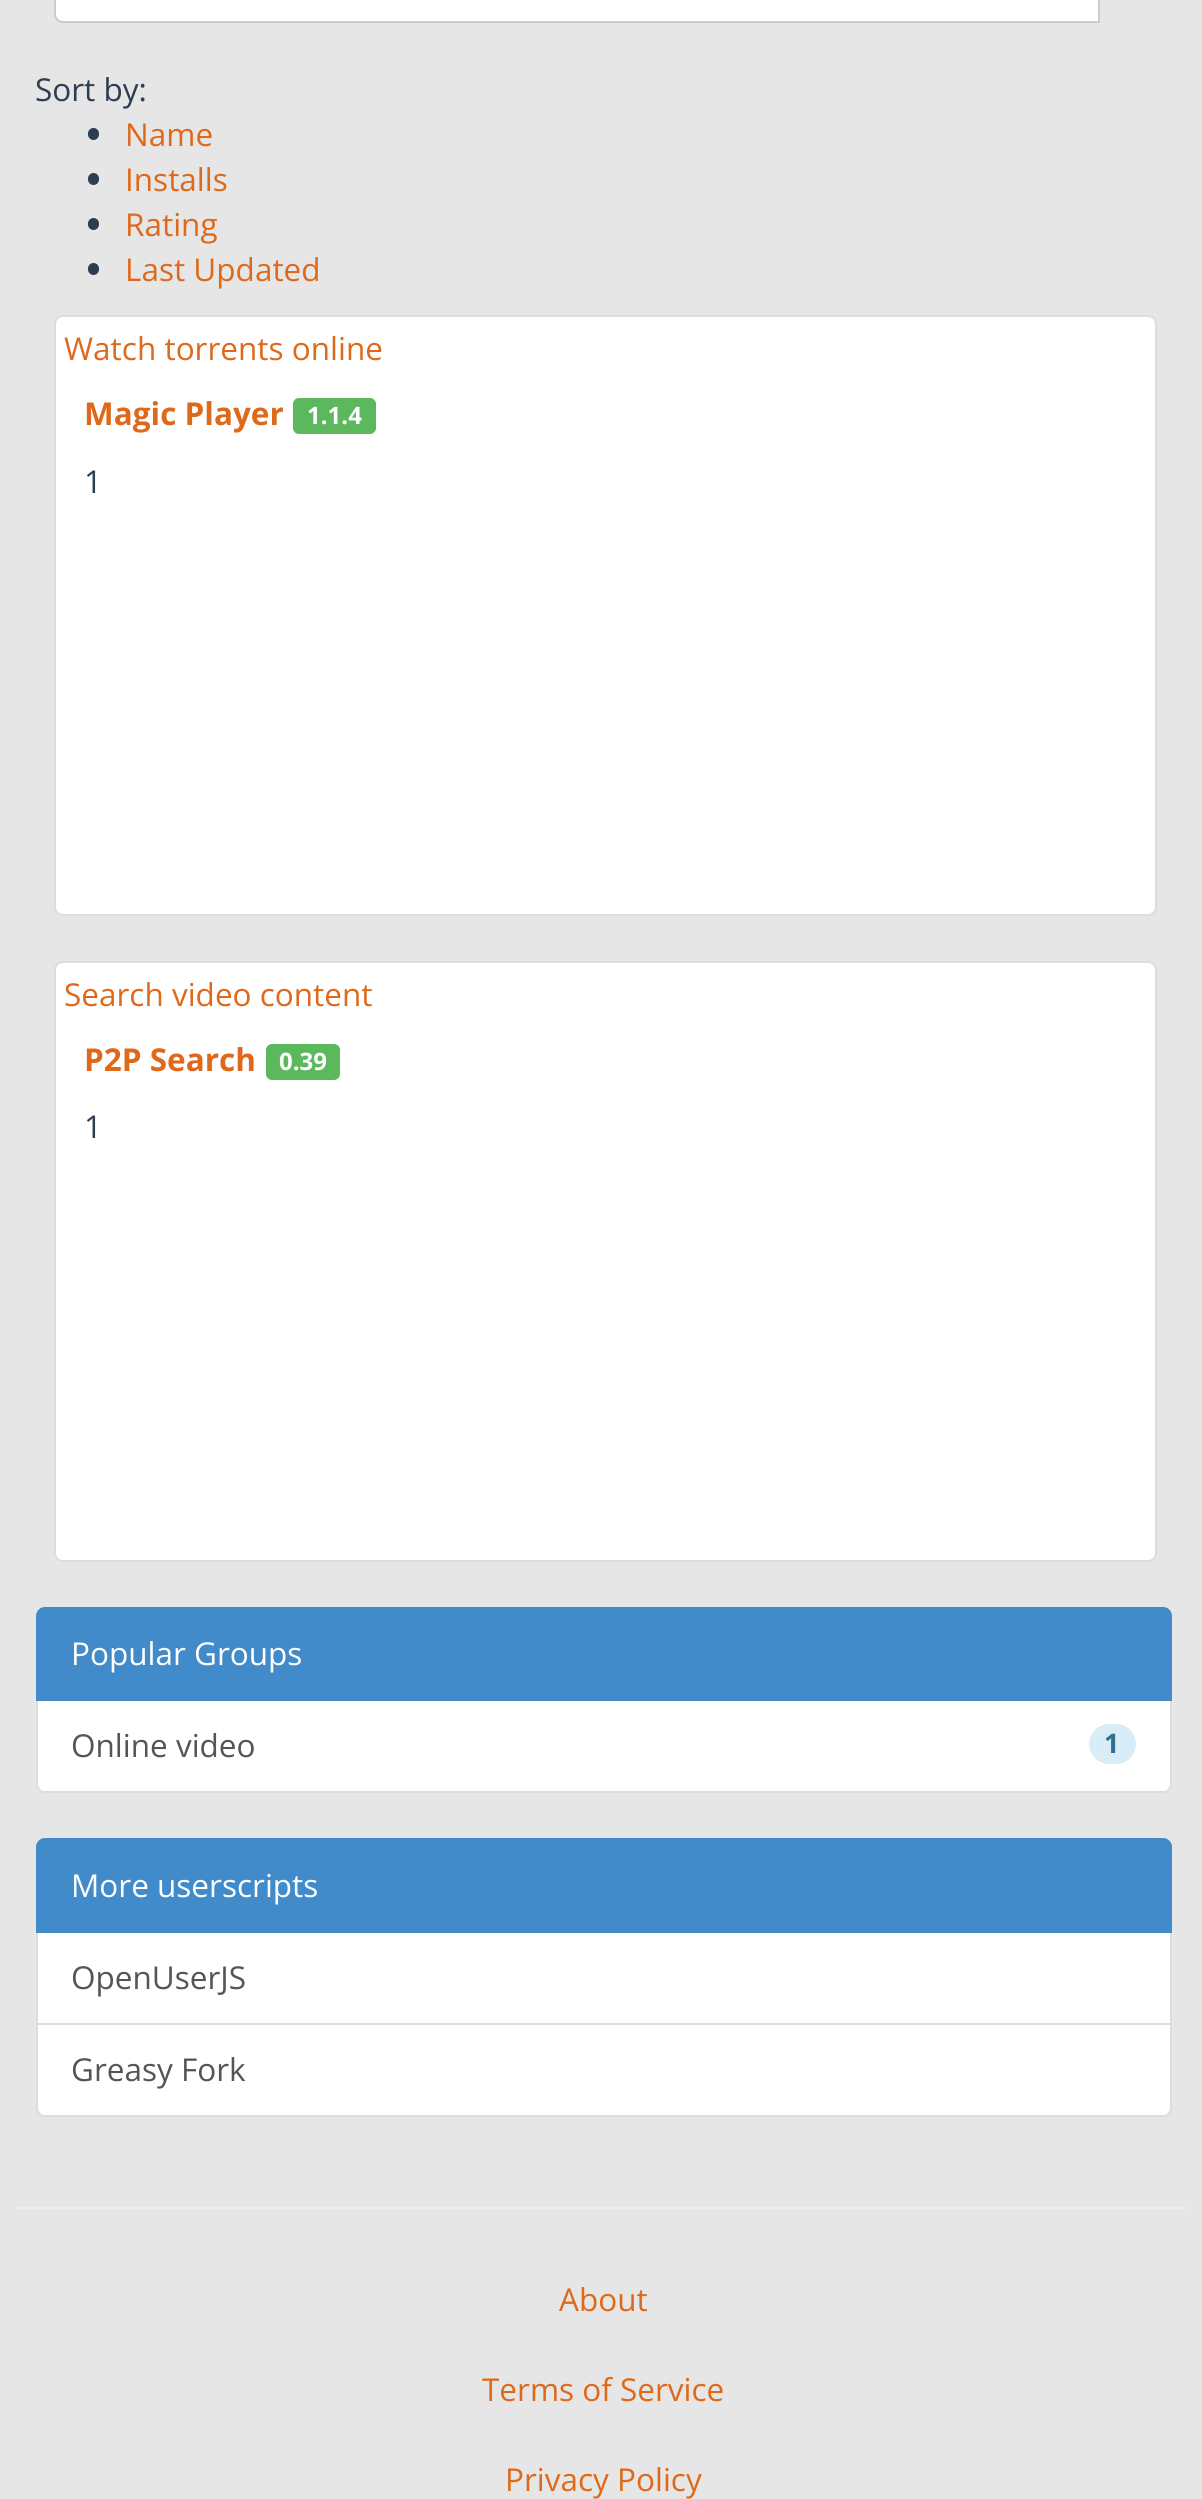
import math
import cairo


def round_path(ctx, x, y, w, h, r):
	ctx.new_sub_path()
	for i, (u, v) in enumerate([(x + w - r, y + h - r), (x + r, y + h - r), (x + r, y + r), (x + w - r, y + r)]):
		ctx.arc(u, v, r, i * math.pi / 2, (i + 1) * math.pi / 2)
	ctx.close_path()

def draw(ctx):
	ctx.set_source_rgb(0.902, 0.902, 0.902)
	ctx.paint()
	ctx.set_source_rgb(1, 1, 1)
	ctx.new_path()
	ctx.move_to(63, -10)
	ctx.line_to(1099, -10)
	ctx.line_to(1099, 22)
	ctx.line_to(63, 22)
	ctx.curve_to(58.5, 22, 55, 18.5, 55, 14)
	ctx.line_to(55, -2)
	ctx.curve_to(55, -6.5, 58.5, -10, 63, -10)
	ctx.close_path()
	ctx.fill_preserve()
	ctx.set_source_rgb(0.8, 0.8, 0.8)
	ctx.stroke()
	ctx.select_font_face('Open Sans')
	ctx.set_font_size(31.5)
	ctx.set_source_rgb(0.173, 0.243, 0.314)
	ctx.move_to(35, 101)
	ctx.show_text('Sort by:')
	round_path(ctx, 88, 128, 11, 12, 5.5)
	ctx.fill()
	ctx.set_source_rgb(0.875, 0.412, 0.102)
	ctx.move_to(125, 146)
	ctx.show_text('Name')
	ctx.set_source_rgb(0.173, 0.243, 0.314)
	round_path(ctx, 88, 173, 11, 12, 5.5)
	ctx.fill()
	ctx.set_source_rgb(0.875, 0.412, 0.102)
	ctx.move_to(125, 191)
	ctx.show_text('Installs')
	ctx.set_source_rgb(0.173, 0.243, 0.314)
	round_path(ctx, 88, 218, 11, 12, 5.5)
	ctx.fill()
	ctx.set_source_rgb(0.875, 0.412, 0.102)
	ctx.move_to(125, 236)
	ctx.show_text('Rating')
	ctx.set_source_rgb(0.173, 0.243, 0.314)
	round_path(ctx, 88, 263, 11, 12, 5.5)
	ctx.fill()
	ctx.set_source_rgb(0.875, 0.412, 0.102)
	ctx.move_to(125, 281)
	ctx.show_text('Last Updated')
	ctx.set_source_rgb(1, 1, 1)
	round_path(ctx, 55, 316, 1101, 599, 8)
	ctx.fill_preserve()
	ctx.set_source_rgb(0.867, 0.867, 0.867)
	ctx.stroke()
	ctx.set_source_rgb(0.875, 0.412, 0.102)
	ctx.move_to(64, 360)
	ctx.show_text('Watch torrents online')
	ctx.select_font_face('Open Sans', cairo.FONT_SLANT_NORMAL, cairo.FONT_WEIGHT_BOLD)
	ctx.move_to(84, 425)
	ctx.show_text('Magic Player')
	ctx.set_source_rgb(0.361, 0.722, 0.361)
	round_path(ctx, 293, 398, 83, 36, 6)
	ctx.fill()
	ctx.set_font_size(24)
	ctx.set_source_rgb(1, 1, 1)
	ctx.move_to(307, 424)
	ctx.show_text('1.1.4')
	ctx.select_font_face('Open Sans')
	ctx.set_font_size(31.5)
	ctx.set_source_rgb(0.173, 0.243, 0.314)
	ctx.move_to(84, 493)
	ctx.show_text('1')
	ctx.set_source_rgb(1, 1, 1)
	round_path(ctx, 55, 962, 1101, 599, 8)
	ctx.fill_preserve()
	ctx.set_source_rgb(0.867, 0.867, 0.867)
	ctx.stroke()
	ctx.set_source_rgb(0.875, 0.412, 0.102)
	ctx.move_to(64, 1006)
	ctx.show_text('Search video content')
	ctx.select_font_face('Open Sans', cairo.FONT_SLANT_NORMAL, cairo.FONT_WEIGHT_BOLD)
	ctx.move_to(84, 1071)
	ctx.show_text('P2P Search')
	ctx.set_source_rgb(0.361, 0.722, 0.361)
	round_path(ctx, 266, 1044, 74, 36, 6)
	ctx.fill()
	ctx.set_font_size(24)
	ctx.set_source_rgb(1, 1, 1)
	ctx.move_to(279, 1070)
	ctx.show_text('0.39')
	ctx.select_font_face('Open Sans')
	ctx.set_font_size(31.5)
	ctx.set_source_rgb(0.173, 0.243, 0.314)
	ctx.move_to(84, 1138)
	ctx.show_text('1')
	ctx.set_source_rgb(1, 1, 1)
	ctx.new_path()
	ctx.move_to(37, 1700)
	ctx.line_to(1171, 1700)
	ctx.line_to(1171, 1784)
	ctx.curve_to(1171, 1788.5, 1167.5, 1792, 1163, 1792)
	ctx.line_to(45, 1792)
	ctx.curve_to(40.5, 1792, 37, 1788.5, 37, 1784)
	ctx.close_path()
	ctx.fill_preserve()
	ctx.set_source_rgb(0.867, 0.867, 0.867)
	ctx.stroke()
	ctx.set_source_rgb(0.259, 0.545, 0.792)
	ctx.new_path()
	ctx.move_to(45, 1608)
	ctx.line_to(1163, 1608)
	ctx.curve_to(1167.5, 1608, 1171, 1611.5, 1171, 1616)
	ctx.line_to(1171, 1700)
	ctx.line_to(37, 1700)
	ctx.line_to(37, 1616)
	ctx.curve_to(37, 1611.5, 40.5, 1608, 45, 1608)
	ctx.close_path()
	ctx.fill_preserve()
	ctx.stroke()
	ctx.set_source_rgb(1, 1, 1)
	ctx.move_to(71, 1665)
	ctx.show_text('Popular Groups')
	ctx.set_source_rgb(0.333, 0.333, 0.333)
	ctx.move_to(71, 1757)
	ctx.show_text('Online video')
	ctx.set_source_rgb(0.851, 0.929, 0.969)
	round_path(ctx, 1089, 1724, 47, 40, 20)
	ctx.fill()
	ctx.select_font_face('Open Sans', cairo.FONT_SLANT_NORMAL, cairo.FONT_WEIGHT_BOLD)
	ctx.set_font_size(27)
	ctx.set_source_rgb(0.192, 0.439, 0.561)
	ctx.move_to(1104, 1753)
	ctx.show_text('1')
	ctx.set_source_rgb(1, 1, 1)
	ctx.rectangle(37, 1932, 1134, 92)
	ctx.fill_preserve()
	ctx.set_source_rgb(0.867, 0.867, 0.867)
	ctx.stroke()
	ctx.set_source_rgb(0.259, 0.545, 0.792)
	ctx.new_path()
	ctx.move_to(45, 1839)
	ctx.line_to(1163, 1839)
	ctx.curve_to(1167.5, 1839, 1171, 1842.5, 1171, 1847)
	ctx.line_to(1171, 1932)
	ctx.line_to(37, 1932)
	ctx.line_to(37, 1847)
	ctx.curve_to(37, 1842.5, 40.5, 1839, 45, 1839)
	ctx.close_path()
	ctx.fill_preserve()
	ctx.stroke()
	ctx.select_font_face('Open Sans')
	ctx.set_font_size(31.5)
	ctx.set_source_rgb(1, 1, 1)
	ctx.move_to(71, 1897)
	ctx.show_text('More userscripts')
	ctx.set_source_rgb(0.333, 0.333, 0.333)
	ctx.move_to(71, 1989)
	ctx.show_text('OpenUserJS')
	ctx.set_source_rgb(1, 1, 1)
	ctx.new_path()
	ctx.move_to(37, 2024)
	ctx.line_to(1171, 2024)
	ctx.line_to(1171, 2108)
	ctx.curve_to(1171, 2112.5, 1167.5, 2116, 1163, 2116)
	ctx.line_to(45, 2116)
	ctx.curve_to(40.5, 2116, 37, 2112.5, 37, 2108)
	ctx.close_path()
	ctx.fill_preserve()
	ctx.set_source_rgb(0.867, 0.867, 0.867)
	ctx.stroke()
	ctx.set_source_rgb(0.333, 0.333, 0.333)
	ctx.move_to(71, 2081)
	ctx.show_text('Greasy Fork')
	ctx.set_source_rgb(0.933, 0.933, 0.933)
	ctx.rectangle(18, 2207, 1170, 2)
	ctx.fill()
	ctx.set_source_rgb(0.875, 0.412, 0.102)
	for x, y, s in [
		(559, 2311, 'About'),
		(482, 2401, 'Terms of Service'),
		(505, 2491, 'Privacy Policy'),
	]:
		ctx.move_to(x, y)
		ctx.show_text(s)


surface = cairo.ImageSurface(cairo.FORMAT_RGB24, 1202, 2499)
ctx = cairo.Context(surface)
options = cairo.FontOptions()
options.set_hint_metrics(cairo.HINT_METRICS_OFF)
options.set_hint_style(cairo.HINT_STYLE_NONE)
ctx.set_font_options(options)
ctx.set_miter_limit(4)
draw(ctx)
surface.write_to_png('image.png')
